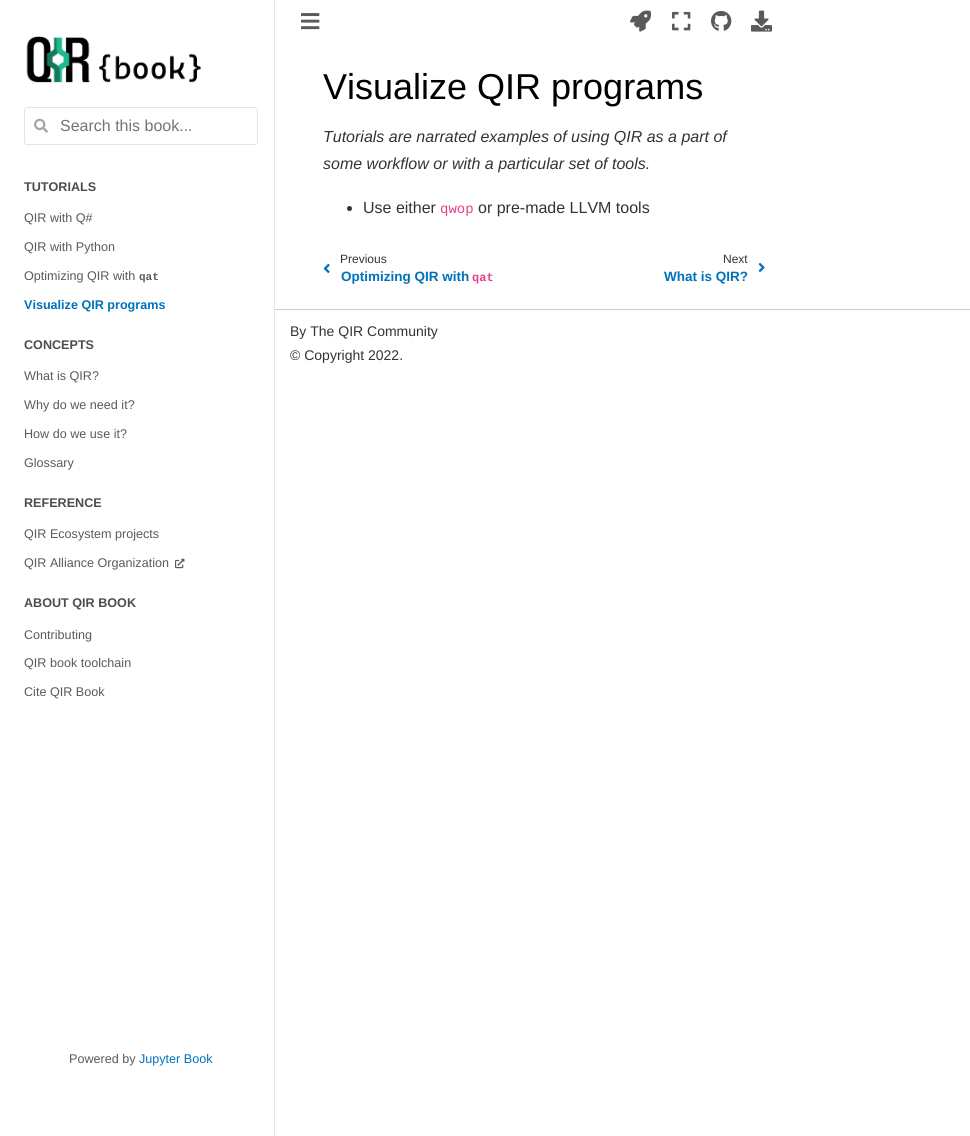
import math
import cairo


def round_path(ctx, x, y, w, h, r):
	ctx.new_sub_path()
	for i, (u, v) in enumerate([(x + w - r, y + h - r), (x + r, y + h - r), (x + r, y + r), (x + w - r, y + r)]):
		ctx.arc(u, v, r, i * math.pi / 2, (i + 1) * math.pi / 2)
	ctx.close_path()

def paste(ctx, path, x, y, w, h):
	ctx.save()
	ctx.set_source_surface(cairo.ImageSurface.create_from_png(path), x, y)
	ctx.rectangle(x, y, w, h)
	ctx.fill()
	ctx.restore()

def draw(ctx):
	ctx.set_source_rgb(1, 1, 1)
	ctx.paint()
	ctx.set_source_rgb(0.902, 0.902, 0.902)
	ctx.rectangle(274, 0, 1, 1136)
	ctx.fill()
	paste(ctx, 'media/1.png', 26, 36, 175, 47)
	round_path(ctx, 24.5, 107.5, 233, 37, 2.5)
	ctx.set_source_rgb(0.898, 0.898, 0.898)
	ctx.set_line_width(1)
	ctx.stroke()
	paste(ctx, 'media/2.png', 34, 118, 14, 15)
	ctx.select_font_face('Liberation Sans')
	ctx.set_font_size(16)
	ctx.set_source_rgb(0.424, 0.459, 0.49)
	ctx.move_to(60, 131)
	ctx.show_text('Search this book...')
	ctx.select_font_face('Liberation Sans', cairo.FONT_SLANT_NORMAL, cairo.FONT_WEIGHT_BOLD)
	ctx.set_font_size(12.6)
	ctx.set_source_rgb(0.302, 0.302, 0.302)
	ctx.move_to(24, 191)
	ctx.show_text('TUTORIALS')
	ctx.select_font_face('Liberation Sans')
	ctx.set_source_rgb(0.353, 0.353, 0.353)
	for x, y, s in [
		(24, 222, 'QIR with Q#'),
		(24, 251, 'QIR with Python'),
		(24, 280, 'Optimizing QIR with'),
	]:
		ctx.move_to(x, y)
		ctx.show_text(s)
	ctx.select_font_face('Liberation Mono', cairo.FONT_SLANT_NORMAL, cairo.FONT_WEIGHT_BOLD)
	ctx.set_font_size(11)
	ctx.move_to(139, 280)
	ctx.show_text('qat')
	ctx.select_font_face('Liberation Sans', cairo.FONT_SLANT_NORMAL, cairo.FONT_WEIGHT_BOLD)
	ctx.set_font_size(12.6)
	ctx.set_source_rgb(0, 0.443, 0.737)
	ctx.move_to(24, 309)
	ctx.show_text('Visualize QIR programs')
	ctx.set_source_rgb(0.302, 0.302, 0.302)
	ctx.move_to(24, 349)
	ctx.show_text('CONCEPTS')
	ctx.select_font_face('Liberation Sans')
	ctx.set_source_rgb(0.353, 0.353, 0.353)
	for x, y, s in [
		(24, 380, 'What is QIR?'),
		(24, 409, 'Why do we need it?'),
		(24, 438, 'How do we use it?'),
		(24, 467, 'Glossary'),
	]:
		ctx.move_to(x, y)
		ctx.show_text(s)
	ctx.select_font_face('Liberation Sans', cairo.FONT_SLANT_NORMAL, cairo.FONT_WEIGHT_BOLD)
	ctx.set_source_rgb(0.302, 0.302, 0.302)
	ctx.move_to(24, 507)
	ctx.show_text('REFERENCE')
	ctx.select_font_face('Liberation Sans')
	ctx.set_source_rgb(0.353, 0.353, 0.353)
	ctx.move_to(24, 538)
	ctx.show_text('QIR Ecosystem projects')
	ctx.move_to(24, 567)
	ctx.show_text('QIR Alliance Organization')
	paste(ctx, 'media/3.png', 175, 558, 10, 11)
	ctx.select_font_face('Liberation Sans', cairo.FONT_SLANT_NORMAL, cairo.FONT_WEIGHT_BOLD)
	ctx.set_source_rgb(0.302, 0.302, 0.302)
	ctx.move_to(24, 607)
	ctx.show_text('ABOUT QIR BOOK')
	ctx.select_font_face('Liberation Sans')
	ctx.set_source_rgb(0.353, 0.353, 0.353)
	for x, y, s in [
		(24, 639, 'Contributing'),
		(24, 667, 'QIR book toolchain'),
		(24, 696, 'Cite QIR Book'),
		(69, 1063, 'Powered by'),
	]:
		ctx.move_to(x, y)
		ctx.show_text(s)
	ctx.set_source_rgb(0, 0.443, 0.737)
	ctx.move_to(139, 1063)
	ctx.show_text('Jupyter Book')
	paste(ctx, 'media/4.png', 301, 13, 19, 17)
	paste(ctx, 'media/5.png', 630, 10, 21, 22)
	paste(ctx, 'media/6.png', 672, 11, 19, 20)
	paste(ctx, 'media/7.png', 711, 11, 21, 20)
	paste(ctx, 'media/8.png', 751, 10, 21, 22)
	ctx.set_font_size(36)
	ctx.set_source_rgb(0, 0, 0)
	ctx.move_to(323, 99)
	ctx.show_text('Visualize QIR programs')
	ctx.select_font_face('Liberation Sans', cairo.FONT_SLANT_ITALIC)
	ctx.set_font_size(16)
	ctx.set_source_rgb(0.2, 0.2, 0.2)
	ctx.move_to(323, 142)
	ctx.show_text('Tutorials are narrated examples of using QIR as a part of')
	ctx.move_to(323, 169)
	ctx.show_text('some workflow or with a particular set of tools.')
	ctx.new_path()
	ctx.arc(349.5, 208.5, 2.5, 0, 2 * math.pi)
	ctx.fill()
	ctx.select_font_face('Liberation Sans')
	ctx.move_to(363, 213)
	ctx.show_text('Use either')
	ctx.select_font_face('Liberation Mono')
	ctx.set_font_size(14)
	ctx.set_source_rgb(0.91, 0.243, 0.549)
	ctx.move_to(440, 213)
	ctx.show_text('qwop')
	ctx.select_font_face('Liberation Sans')
	ctx.set_font_size(16)
	ctx.set_source_rgb(0.2, 0.2, 0.2)
	ctx.move_to(478, 213)
	ctx.show_text('or pre-made LLVM tools')
	paste(ctx, 'media/9.png', 323, 263, 7, 10)
	ctx.set_font_size(12)
	ctx.move_to(340, 263)
	ctx.show_text('Previous')
	ctx.select_font_face('Liberation Sans', cairo.FONT_SLANT_NORMAL, cairo.FONT_WEIGHT_BOLD)
	ctx.set_font_size(13.5)
	ctx.set_source_rgb(0, 0.443, 0.737)
	ctx.move_to(341, 281)
	ctx.show_text('Optimizing QIR with')
	ctx.select_font_face('Liberation Mono', cairo.FONT_SLANT_NORMAL, cairo.FONT_WEIGHT_BOLD)
	ctx.set_font_size(12)
	ctx.set_source_rgb(0.91, 0.243, 0.549)
	ctx.move_to(472, 281)
	ctx.show_text('qat')
	ctx.select_font_face('Liberation Sans')
	ctx.set_source_rgb(0.2, 0.2, 0.2)
	ctx.move_to(723, 263)
	ctx.show_text('Next')
	ctx.select_font_face('Liberation Sans', cairo.FONT_SLANT_NORMAL, cairo.FONT_WEIGHT_BOLD)
	ctx.set_font_size(13.5)
	ctx.set_source_rgb(0, 0.443, 0.737)
	ctx.move_to(664, 281)
	ctx.show_text('What is QIR?')
	paste(ctx, 'media/10.png', 758, 263, 7, 9)
	ctx.set_source_rgb(0.8, 0.8, 0.8)
	ctx.rectangle(275, 309, 695, 1)
	ctx.fill()
	ctx.select_font_face('Liberation Sans')
	ctx.set_font_size(14)
	ctx.set_source_rgb(0.2, 0.2, 0.2)
	ctx.move_to(290, 336)
	ctx.show_text('By The QIR Community')
	ctx.move_to(290, 360)
	ctx.show_text('© Copyright 2022.')


surface = cairo.ImageSurface(cairo.FORMAT_RGB24, 970, 1136)
ctx = cairo.Context(surface)
options = cairo.FontOptions()
options.set_hint_metrics(cairo.HINT_METRICS_OFF)
options.set_hint_style(cairo.HINT_STYLE_NONE)
ctx.set_font_options(options)
ctx.set_miter_limit(4)
draw(ctx)
surface.write_to_png('image.png')
